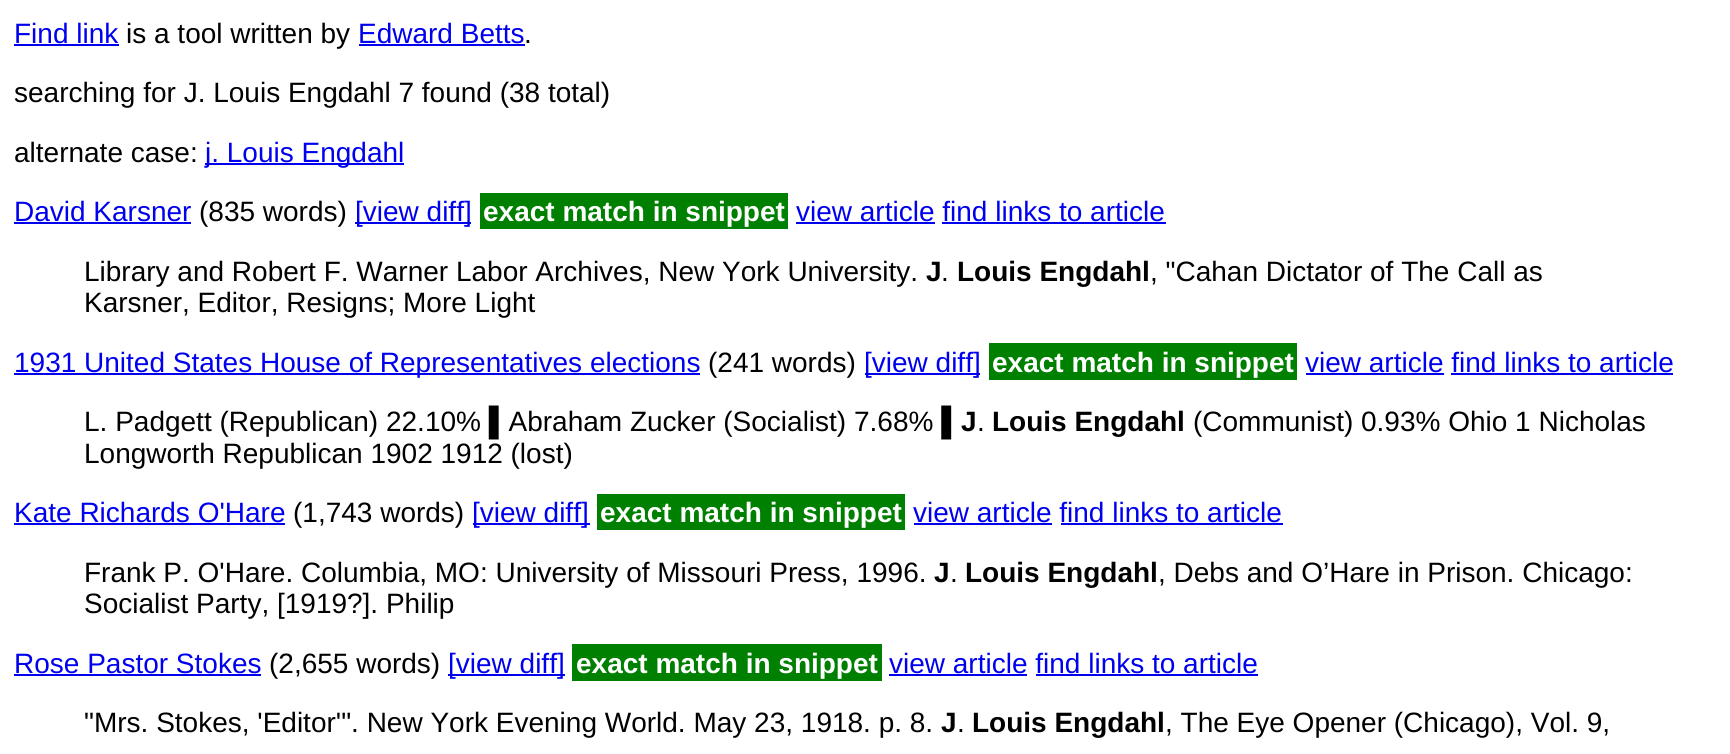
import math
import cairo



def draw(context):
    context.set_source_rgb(1, 1, 1)
    context.paint()
    context.set_source_rgb(0, 0, 238 / 255)
    context.rectangle(14, 44, 105, 2)
    context.fill()
    context.rectangle(359, 44, 166, 2)
    context.fill()
    context.rectangle(205, 163, 199, 2)
    context.fill()
    context.rectangle(14, 222, 177, 2)
    context.fill()
    context.rectangle(355, 222, 116, 2)
    context.fill()
    context.set_source_rgb(0, 128 / 255, 0)
    context.rectangle(480, 193, 308, 36)
    context.fill()
    context.set_source_rgb(0, 0, 238 / 255)
    context.rectangle(796, 222, 139, 2)
    context.fill()
    context.rectangle(942, 222, 224, 2)
    context.fill()
    context.rectangle(14, 373, 686, 2)
    context.fill()
    context.rectangle(865, 373, 115, 2)
    context.fill()
    context.set_source_rgb(0, 128 / 255, 0)
    context.rectangle(989, 343, 308, 37)
    context.fill()
    context.set_source_rgb(0, 0, 238 / 255)
    context.rectangle(1306, 373, 138, 2)
    context.fill()
    context.rectangle(1451, 373, 222, 2)
    context.fill()
    context.rectangle(14, 523, 271, 2)
    context.fill()
    context.rectangle(473, 523, 117, 2)
    context.fill()
    context.set_source_rgb(0, 128 / 255, 0)
    context.rectangle(597, 494, 308, 36)
    context.fill()
    context.set_source_rgb(0, 0, 238 / 255)
    context.rectangle(914, 523, 138, 2)
    context.fill()
    context.rectangle(1061, 523, 222, 2)
    context.fill()
    context.rectangle(14, 674, 247, 2)
    context.fill()
    context.rectangle(448, 674, 117, 2)
    context.fill()
    context.set_source_rgb(0, 128 / 255, 0)
    context.rectangle(572, 644, 310, 37)
    context.fill()
    context.set_source_rgb(0, 0, 238 / 255)
    context.rectangle(889, 674, 138, 2)
    context.fill()
    context.rectangle(1036, 674, 222, 2)
    context.fill()
    context.select_font_face("Liberation Sans")
    context.set_font_size(28)
    context.move_to(14, 43)
    context.show_text("Find link")
    context.set_source_rgb(0, 0, 0)
    context.move_to(126, 43)
    context.show_text("is a tool written by")
    context.set_source_rgb(0, 0, 238 / 255)
    context.move_to(358, 43)
    context.show_text("Edward Betts")
    context.set_source_rgb(0, 0, 0)
    context.move_to(524, 43)
    context.show_text(".")
    context.move_to(14, 102)
    context.show_text("searching for J. Louis Engdahl 7 found (38 total)")
    context.move_to(14, 162)
    context.show_text("alternate case:")
    context.set_source_rgb(0, 0, 238 / 255)
    context.move_to(205, 162)
    context.show_text("j. Louis Engdahl")
    context.move_to(14, 221)
    context.show_text("David Karsner")
    context.set_source_rgb(0, 0, 0)
    context.move_to(199, 221)
    context.show_text("(835 words)")
    context.set_source_rgb(0, 0, 238 / 255)
    context.move_to(355, 221)
    context.show_text("[view diff]")
    context.select_font_face("Liberation Sans", cairo.FontSlant.NORMAL, cairo.FontWeight.BOLD)
    context.set_source_rgb(1, 1, 1)
    context.move_to(483, 221)
    context.show_text("exact match in snippet")
    context.select_font_face("Liberation Sans")
    context.set_source_rgb(0, 0, 238 / 255)
    context.move_to(796, 221)
    context.show_text("view article find links to article")
    context.set_source_rgb(0, 0, 0)
    context.move_to(84, 281)
    context.show_text("Library and Robert F. Warner Labor Archives, New York University.")
    context.select_font_face("Liberation Sans", cairo.FontSlant.NORMAL, cairo.FontWeight.BOLD)
    context.move_to(926, 281)
    context.show_text("J")
    context.select_font_face("Liberation Sans")
    context.move_to(941, 281)
    context.show_text(".")
    context.select_font_face("Liberation Sans", cairo.FontSlant.NORMAL, cairo.FontWeight.BOLD)
    context.move_to(957, 281)
    context.show_text("Louis Engdahl")
    context.select_font_face("Liberation Sans")
    context.move_to(1150, 281)
    context.show_text(", \"Cahan Dictator of The Call as")
    context.move_to(84, 312)
    context.show_text("Karsner, Editor, Resigns; More Light")
    context.set_source_rgb(0, 0, 238 / 255)
    context.move_to(14, 372)
    context.show_text("1931 United States House of Representatives elections")
    context.set_source_rgb(0, 0, 0)
    context.move_to(708, 372)
    context.show_text("(241 words)")
    context.set_source_rgb(0, 0, 238 / 255)
    context.move_to(864, 372)
    context.show_text("[view diff]")
    context.select_font_face("Liberation Sans", cairo.FontSlant.NORMAL, cairo.FontWeight.BOLD)
    context.set_source_rgb(1, 1, 1)
    context.move_to(992, 372)
    context.show_text("exact match in snippet")
    context.select_font_face("Liberation Sans")
    context.set_source_rgb(0, 0, 238 / 255)
    context.move_to(1305, 372)
    context.show_text("view article find links to article")
    context.set_source_rgb(0, 0, 0)
    context.move_to(84, 431)
    context.show_text("L. Padgett (Republican) 22.10% ▌Abraham Zucker (Socialist) 7.68% ▌")
    context.select_font_face("Liberation Sans", cairo.FontSlant.NORMAL, cairo.FontWeight.BOLD)
    context.move_to(961, 431)
    context.show_text("J")
    context.select_font_face("Liberation Sans")
    context.move_to(977, 431)
    context.show_text(".")
    context.select_font_face("Liberation Sans", cairo.FontSlant.NORMAL, cairo.FontWeight.BOLD)
    context.move_to(992, 431)
    context.show_text("Louis Engdahl")
    context.select_font_face("Liberation Sans")
    context.move_to(1193, 431)
    context.show_text("(Communist) 0.93% Ohio 1 Nicholas")
    context.move_to(84, 463)
    context.show_text("Longworth Republican 1902 1912 (lost)")
    context.set_source_rgb(0, 0, 238 / 255)
    context.move_to(14, 522)
    context.show_text("Kate Richards O'Hare")
    context.set_source_rgb(0, 0, 0)
    context.move_to(293, 522)
    context.show_text("(1,743 words)")
    context.set_source_rgb(0, 0, 238 / 255)
    context.move_to(472, 522)
    context.show_text("[view diff]")
    context.select_font_face("Liberation Sans", cairo.FontSlant.NORMAL, cairo.FontWeight.BOLD)
    context.set_source_rgb(1, 1, 1)
    context.move_to(600, 522)
    context.show_text("exact match in snippet")
    context.select_font_face("Liberation Sans")
    context.set_source_rgb(0, 0, 238 / 255)
    context.move_to(913, 522)
    context.show_text("view article find links to article")
    context.set_source_rgb(0, 0, 0)
    context.move_to(84, 582)
    context.show_text("Frank P. O'Hare. Columbia, MO: University of Missouri Press, 1996.")
    context.select_font_face("Liberation Sans", cairo.FontSlant.NORMAL, cairo.FontWeight.BOLD)
    context.move_to(934, 582)
    context.show_text("J")
    context.select_font_face("Liberation Sans")
    context.move_to(950, 582)
    context.show_text(".")
    context.select_font_face("Liberation Sans", cairo.FontSlant.NORMAL, cairo.FontWeight.BOLD)
    context.move_to(965, 582)
    context.show_text("Louis Engdahl")
    context.select_font_face("Liberation Sans")
    context.move_to(1158, 582)
    context.show_text(", Debs and O’Hare in Prison. Chicago:")
    context.move_to(84, 613)
    context.show_text("Socialist Party, [1919?]. Philip")
    context.set_source_rgb(0, 0, 238 / 255)
    context.move_to(14, 673)
    context.show_text("Rose Pastor Stokes")
    context.set_source_rgb(0, 0, 0)
    context.move_to(269, 673)
    context.show_text("(2,655 words)")
    context.set_source_rgb(0, 0, 238 / 255)
    context.move_to(448, 673)
    context.show_text("[view diff]")
    context.select_font_face("Liberation Sans", cairo.FontSlant.NORMAL, cairo.FontWeight.BOLD)
    context.set_source_rgb(1, 1, 1)
    context.move_to(576, 673)
    context.show_text("exact match in snippet")
    context.select_font_face("Liberation Sans")
    context.set_source_rgb(0, 0, 238 / 255)
    context.move_to(889, 673)
    context.show_text("view article find links to article")
    context.set_source_rgb(0, 0, 0)
    context.move_to(84, 732)
    context.show_text("\"Mrs. Stokes, 'Editor'\". New York Evening World. May 23, 1918. p. 8.")
    context.select_font_face("Liberation Sans", cairo.FontSlant.NORMAL, cairo.FontWeight.BOLD)
    context.move_to(941, 732)
    context.show_text("J")
    context.select_font_face("Liberation Sans")
    context.move_to(957, 732)
    context.show_text(".")
    context.select_font_face("Liberation Sans", cairo.FontSlant.NORMAL, cairo.FontWeight.BOLD)
    context.move_to(972, 732)
    context.show_text("Louis Engdahl")
    context.select_font_face("Liberation Sans")
    context.move_to(1165, 732)
    context.show_text(", The Eye Opener (Chicago), Vol. 9,")


surface = cairo.ImageSurface(cairo.Format.RGB24, 1730, 754)
context = cairo.Context(surface)
options = cairo.FontOptions()
options.set_hint_metrics(cairo.HintMetrics.OFF)
options.set_hint_style(cairo.HintStyle.NONE)
context.set_font_options(options)
context.set_miter_limit(4)
draw(context)
surface.write_to_png("out.png")
